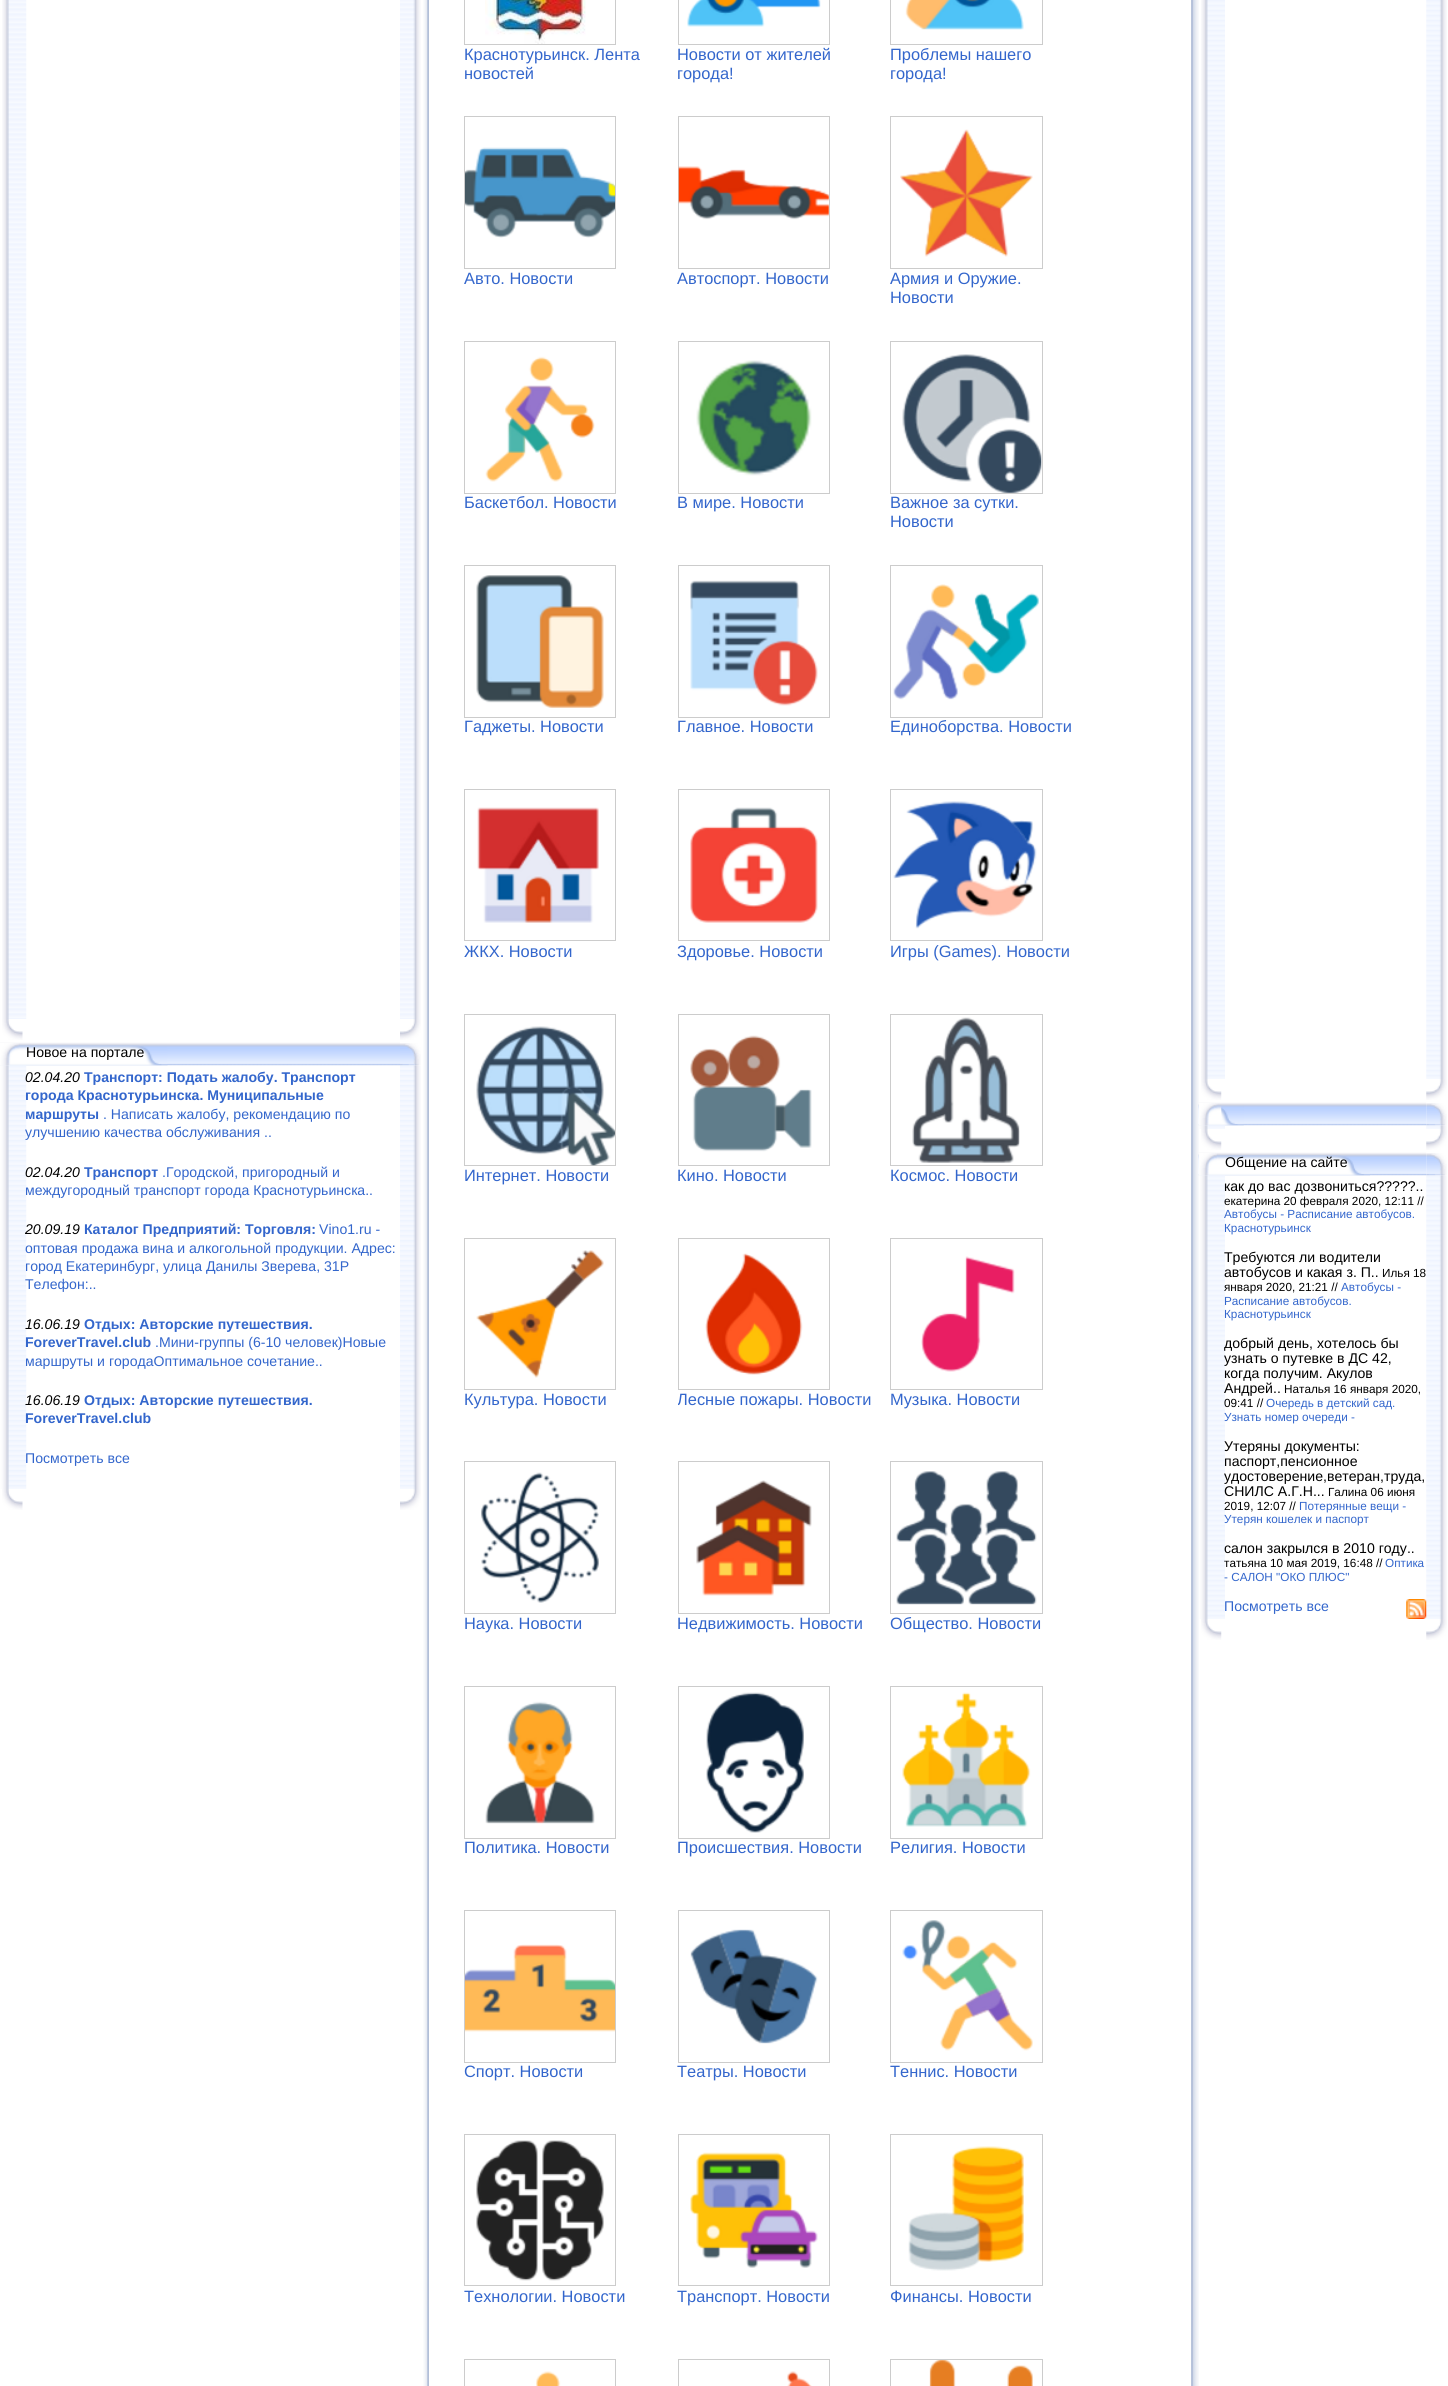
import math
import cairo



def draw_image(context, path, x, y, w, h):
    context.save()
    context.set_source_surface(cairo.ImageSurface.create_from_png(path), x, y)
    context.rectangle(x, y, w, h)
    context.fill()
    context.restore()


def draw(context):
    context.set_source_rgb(1, 1, 1)
    context.paint()
    draw_image(context, "images/1.png", 2, 0, 25, 1019)
    draw_image(context, "images/2.png", 400, 0, 21, 1019)
    draw_image(context, "images/3.png", 2, 1019, 21, 21)
    draw_image(context, "images/4.png", 400, 1019, 21, 21)
    draw_image(context, "images/5.png", 0, 1042, 400, 24)
    draw_image(context, "images/6.png", 0, 1045, 168, 21)
    draw_image(context, "images/7.png", 0, 1043, 19, 22)
    draw_image(context, "images/10.png", 400, 1065, 21, 424)
    draw_image(context, "images/8.png", 400, 1043, 21, 23)
    draw_image(context, "images/9.png", 0, 1065, 27, 424)
    draw_image(context, "images/3.png", 2, 1489, 21, 21)
    draw_image(context, "images/4.png", 400, 1489, 21, 21)
    draw_image(context, "images/11.png", 423, 0, 6, 2386)
    draw_image(context, "images/12.png", 1191, 0, 8, 2386)
    context.rectangle(464.5, -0.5, 151, 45)
    context.set_source_rgb(204 / 255, 204 / 255, 204 / 255)
    context.set_line_width(1)
    context.stroke()
    draw_image(context, "images/13.png", 485, 0, 101, 44)
    context.rectangle(678.5, -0.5, 151, 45)
    context.stroke()
    draw_image(context, "images/14.png", 687, 0, 134, 27)
    context.rectangle(890.5, -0.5, 152, 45)
    context.stroke()
    draw_image(context, "images/15.png", 905, 0, 119, 30)
    context.rectangle(464.5, 116.5, 151, 152)
    context.stroke()
    draw_image(context, "images/16.png", 465, 147, 150, 91)
    context.rectangle(678.5, 116.5, 151, 152)
    context.stroke()
    draw_image(context, "images/17.png", 678, 166, 151, 54)
    context.rectangle(890.5, 116.5, 152, 152)
    context.stroke()
    draw_image(context, "images/18.png", 900, 129, 133, 128)
    context.rectangle(464.5, 341.5, 151, 152)
    context.stroke()
    draw_image(context, "images/19.png", 485, 356, 110, 126)
    context.rectangle(678.5, 341.5, 151, 152)
    context.stroke()
    draw_image(context, "images/20.png", 696, 360, 116, 116)
    context.rectangle(890.5, 341.5, 152, 152)
    context.stroke()
    draw_image(context, "images/21.png", 902, 354, 140, 139)
    context.rectangle(464.5, 565.5, 151, 152)
    context.stroke()
    draw_image(context, "images/22.png", 476, 575, 128, 133)
    context.rectangle(678.5, 565.5, 151, 152)
    context.stroke()
    draw_image(context, "images/23.png", 690, 580, 128, 126)
    context.rectangle(890.5, 565.5, 152, 152)
    context.stroke()
    draw_image(context, "images/24.png", 893, 584, 146, 116)
    context.rectangle(464.5, 789.5, 151, 151)
    context.stroke()
    draw_image(context, "images/25.png", 477, 807, 122, 116)
    context.rectangle(678.5, 789.5, 151, 151)
    context.stroke()
    draw_image(context, "images/26.png", 690, 807, 128, 116)
    context.rectangle(890.5, 789.5, 152, 151)
    context.stroke()
    draw_image(context, "images/27.png", 893, 801, 144, 128)
    context.rectangle(464.5, 1014.5, 151, 151)
    context.stroke()
    draw_image(context, "images/28.png", 476, 1026, 139, 140)
    context.rectangle(678.5, 1014.5, 151, 151)
    context.stroke()
    draw_image(context, "images/29.png", 690, 1035, 122, 117)
    context.rectangle(890.5, 1014.5, 152, 151)
    context.stroke()
    draw_image(context, "images/30.png", 912, 1017, 108, 146)
    context.rectangle(464.5, 1238.5, 151, 151)
    context.stroke()
    draw_image(context, "images/31.png", 476, 1250, 128, 128)
    context.rectangle(678.5, 1238.5, 151, 151)
    context.stroke()
    draw_image(context, "images/32.png", 705, 1253, 98, 122)
    context.rectangle(890.5, 1238.5, 152, 151)
    context.stroke()
    draw_image(context, "images/33.png", 921, 1256, 94, 116)
    context.rectangle(464.5, 1461.5, 151, 152)
    context.stroke()
    draw_image(context, "images/34.png", 481, 1472, 118, 131)
    context.rectangle(678.5, 1461.5, 151, 152)
    context.stroke()
    draw_image(context, "images/35.png", 696, 1480, 116, 116)
    context.rectangle(890.5, 1461.5, 152, 152)
    context.stroke()
    draw_image(context, "images/36.png", 896, 1471, 141, 134)
    context.rectangle(464.5, 1686.5, 151, 152)
    context.stroke()
    draw_image(context, "images/37.png", 485, 1701, 110, 123)
    context.rectangle(678.5, 1686.5, 151, 152)
    context.stroke()
    draw_image(context, "images/38.png", 706, 1692, 98, 141)
    context.rectangle(890.5, 1686.5, 152, 152)
    context.stroke()
    draw_image(context, "images/39.png", 902, 1692, 129, 135)
    context.rectangle(464.5, 1910.5, 151, 152)
    context.stroke()
    draw_image(context, "images/40.png", 465, 1944, 150, 88)
    context.rectangle(678.5, 1910.5, 151, 152)
    context.stroke()
    draw_image(context, "images/41.png", 690, 1929, 128, 115)
    context.rectangle(890.5, 1910.5, 152, 152)
    context.stroke()
    draw_image(context, "images/42.png", 902, 1920, 131, 131)
    context.rectangle(464.5, 2134.5, 151, 151)
    context.stroke()
    draw_image(context, "images/43.png", 476, 2140, 128, 141)
    context.rectangle(678.5, 2134.5, 151, 151)
    context.stroke()
    draw_image(context, "images/44.png", 690, 2152, 128, 116)
    context.rectangle(890.5, 2134.5, 152, 151)
    context.stroke()
    draw_image(context, "images/45.png", 908, 2146, 116, 125)
    context.rectangle(464.5, 2359.5, 151, 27)
    context.stroke()
    draw_image(context, "images/46.png", 536, 2371, 25, 15)
    context.rectangle(678.5, 2359.5, 151, 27)
    context.stroke()
    draw_image(context, "images/47.png", 787, 2371, 25, 15)
    context.rectangle(890.5, 2359.5, 152, 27)
    context.stroke()
    draw_image(context, "images/48.png", 929, 2360, 104, 26)
    draw_image(context, "images/49.png", 1201, 0, 24, 1079)
    draw_image(context, "images/50.png", 1426, 0, 21, 1079)
    draw_image(context, "images/51.png", 1201, 1079, 21, 21)
    draw_image(context, "images/52.png", 1426, 1079, 21, 21)
    draw_image(context, "images/53.png", 1198, 1102, 229, 24)
    draw_image(context, "images/54.png", 1198, 1104, 46, 22)
    draw_image(context, "images/55.png", 1198, 1103, 24, 22)
    draw_image(context, "images/58.png", 1426, 1125, 21, 4)
    draw_image(context, "images/56.png", 1426, 1103, 21, 23)
    draw_image(context, "images/57.png", 1199, 1125, 26, 4)
    draw_image(context, "images/51.png", 1201, 1129, 21, 21)
    draw_image(context, "images/52.png", 1426, 1129, 21, 21)
    draw_image(context, "images/53.png", 1198, 1152, 229, 24)
    draw_image(context, "images/59.png", 1198, 1154, 172, 22)
    draw_image(context, "images/60.png", 1198, 1153, 19, 22)
    draw_image(context, "images/64.png", 1426, 1175, 21, 444)
    draw_image(context, "images/61.png", 1426, 1153, 21, 23)
    draw_image(context, "images/62.png", 1199, 1175, 26, 444)
    draw_image(context, "images/63.png", 1406, 1599, 21, 20)
    draw_image(context, "images/51.png", 1201, 1619, 21, 21)
    draw_image(context, "images/52.png", 1426, 1619, 21, 21)
    context.select_font_face("Liberation Sans")
    context.set_font_size(14.1)
    context.set_source_rgb(0, 0, 0)
    context.move_to(26, 1057)
    context.show_text("Новое на портале")
    context.select_font_face("Liberation Sans", cairo.FontSlant.ITALIC)
    context.move_to(25, 1082)
    context.show_text("02.04.20")
    context.select_font_face("Liberation Sans", cairo.FontSlant.NORMAL, cairo.FontWeight.BOLD)
    context.set_source_rgb(51 / 255, 102 / 255, 204 / 255)
    context.move_to(84, 1082)
    context.show_text("Транспорт: Подать жалобу. Транспорт")
    context.move_to(25, 1100)
    context.show_text("города Краснотурьинска. Муниципальные")
    context.move_to(25, 1119)
    context.show_text("маршруты")
    context.select_font_face("Liberation Sans")
    context.move_to(103, 1119)
    context.show_text(". Написать жалобу, рекомендацию по")
    context.move_to(25, 1137)
    context.show_text("улучшению качества обслуживания ..")
    context.select_font_face("Liberation Sans", cairo.FontSlant.ITALIC)
    context.set_source_rgb(0, 0, 0)
    context.move_to(25, 1177)
    context.show_text("02.04.20")
    context.select_font_face("Liberation Sans", cairo.FontSlant.NORMAL, cairo.FontWeight.BOLD)
    context.set_source_rgb(51 / 255, 102 / 255, 204 / 255)
    context.move_to(84, 1177)
    context.show_text("Транспорт")
    context.select_font_face("Liberation Sans")
    context.move_to(162, 1177)
    context.show_text(".Городской, пригородный и")
    context.move_to(25, 1195)
    context.show_text("междугородный транспорт города Краснотурьинска..")
    context.select_font_face("Liberation Sans", cairo.FontSlant.ITALIC)
    context.set_source_rgb(0, 0, 0)
    context.move_to(25, 1234)
    context.show_text("20.09.19")
    context.select_font_face("Liberation Sans", cairo.FontSlant.NORMAL, cairo.FontWeight.BOLD)
    context.set_source_rgb(51 / 255, 102 / 255, 204 / 255)
    context.move_to(84, 1234)
    context.show_text("Каталог Предприятий: Торговля:")
    context.select_font_face("Liberation Sans")
    context.move_to(319, 1234)
    context.show_text("Vino1.ru -")
    context.move_to(25, 1253)
    context.show_text("оптовая продажа вина и алкогольной продукции. Адрес:")
    context.move_to(25, 1271)
    context.show_text("город Екатеринбург, улица Данилы Зверева, 31Р")
    context.move_to(25, 1289)
    context.show_text("Телефон:..")
    context.select_font_face("Liberation Sans", cairo.FontSlant.ITALIC)
    context.set_source_rgb(0, 0, 0)
    context.move_to(25, 1329)
    context.show_text("16.06.19")
    context.select_font_face("Liberation Sans", cairo.FontSlant.NORMAL, cairo.FontWeight.BOLD)
    context.set_source_rgb(51 / 255, 102 / 255, 204 / 255)
    context.move_to(84, 1329)
    context.show_text("Отдых: Авторские путешествия.")
    context.move_to(25, 1347)
    context.show_text("ForeverTravel.club")
    context.select_font_face("Liberation Sans")
    context.move_to(155, 1347)
    context.show_text(".Мини-группы (6-10 человек)Новые")
    context.move_to(25, 1366)
    context.show_text("маршруты и городаОптимальное сочетание..")
    context.select_font_face("Liberation Sans", cairo.FontSlant.ITALIC)
    context.set_source_rgb(0, 0, 0)
    context.move_to(25, 1405)
    context.show_text("16.06.19")
    context.select_font_face("Liberation Sans", cairo.FontSlant.NORMAL, cairo.FontWeight.BOLD)
    context.set_source_rgb(51 / 255, 102 / 255, 204 / 255)
    context.move_to(84, 1405)
    context.show_text("Отдых: Авторские путешествия.")
    context.move_to(25, 1423)
    context.show_text("ForeverTravel.club")
    context.select_font_face("Liberation Sans")
    context.move_to(25, 1463)
    context.show_text("Посмотреть все")
    context.set_font_size(16.4)
    context.move_to(464, 60)
    context.show_text("Краснотурьинск. Лента")
    context.move_to(464, 79)
    context.show_text("новостей")
    context.move_to(677, 60)
    context.show_text("Новости от жителей")
    context.move_to(677, 79)
    context.show_text("города!")
    context.move_to(890, 60)
    context.show_text("Проблемы нашего")
    context.move_to(890, 79)
    context.show_text("города!")
    context.move_to(464, 284)
    context.show_text("Авто. Новости")
    context.move_to(677, 284)
    context.show_text("Автоспорт. Новости")
    context.move_to(890, 284)
    context.show_text("Армия и Оружие.")
    context.move_to(890, 303)
    context.show_text("Новости")
    context.move_to(464, 508)
    context.show_text("Баскетбол. Новости")
    context.move_to(677, 508)
    context.show_text("В мире. Новости")
    context.move_to(890, 508)
    context.show_text("Важное за сутки.")
    context.move_to(890, 527)
    context.show_text("Новости")
    context.move_to(464, 732)
    context.show_text("Гаджеты. Новости")
    context.move_to(677, 732)
    context.show_text("Главное. Новости")
    context.move_to(890, 732)
    context.show_text("Единоборства. Новости")
    context.move_to(464, 957)
    context.show_text("ЖКХ. Новости")
    context.move_to(677, 957)
    context.show_text("Здоровье. Новости")
    context.move_to(890, 957)
    context.show_text("Игры (Games). Новости")
    context.move_to(464, 1181)
    context.show_text("Интернет. Новости")
    context.move_to(677, 1181)
    context.show_text("Кино. Новости")
    context.move_to(890, 1181)
    context.show_text("Космос. Новости")
    context.move_to(464, 1405)
    context.show_text("Культура. Новости")
    context.save()
    context.rectangle(678, 1238, 196, 207)
    context.clip()
    context.move_to(677, 1405)
    context.show_text("Лесные пожары. Новости")
    context.restore()
    context.move_to(890, 1405)
    context.show_text("Музыка. Новости")
    context.move_to(464, 1629)
    context.show_text("Наука. Новости")
    context.move_to(677, 1629)
    context.show_text("Недвижимость. Новости")
    context.move_to(890, 1629)
    context.show_text("Общество. Новости")
    context.move_to(464, 1853)
    context.show_text("Политика. Новости")
    context.move_to(677, 1853)
    context.show_text("Происшествия. Новости")
    context.move_to(890, 1853)
    context.show_text("Религия. Новости")
    context.move_to(464, 2077)
    context.show_text("Спорт. Новости")
    context.move_to(677, 2077)
    context.show_text("Театры. Новости")
    context.move_to(890, 2077)
    context.show_text("Теннис. Новости")
    context.move_to(464, 2302)
    context.show_text("Технологии. Новости")
    context.move_to(677, 2302)
    context.show_text("Транспорт. Новости")
    context.move_to(890, 2302)
    context.show_text("Финансы. Новости")
    context.set_font_size(14.1)
    context.set_source_rgb(0, 0, 0)
    context.move_to(1225, 1167)
    context.show_text("Общение на сайте")
    context.move_to(1224, 1191)
    context.show_text("как до вас дозвониться?????..")
    context.set_font_size(11.75)
    context.move_to(1224, 1205)
    context.show_text("екатерина 20 февраля 2020, 12:11 //")
    context.set_source_rgb(51 / 255, 102 / 255, 204 / 255)
    context.move_to(1224, 1218)
    context.show_text("Автобусы - Расписание автобусов.")
    context.move_to(1224, 1232)
    context.show_text("Краснотурьинск")
    context.set_font_size(14.1)
    context.set_source_rgb(0, 0, 0)
    context.move_to(1224, 1262)
    context.show_text("Требуются ли водители")
    context.move_to(1224, 1277)
    context.show_text("автобусов и какая з. П..")
    context.set_font_size(11.75)
    context.move_to(1382, 1277)
    context.show_text("Илья 18")
    context.move_to(1224, 1291)
    context.show_text("января 2020, 21:21 //")
    context.set_source_rgb(51 / 255, 102 / 255, 204 / 255)
    context.move_to(1341, 1291)
    context.show_text("Автобусы -")
    context.move_to(1224, 1305)
    context.show_text("Расписание автобусов.")
    context.move_to(1224, 1318)
    context.show_text("Краснотурьинск")
    context.set_font_size(14.1)
    context.set_source_rgb(0, 0, 0)
    context.move_to(1224, 1348)
    context.show_text("добрый день, хотелось бы")
    context.move_to(1224, 1363)
    context.show_text("узнать о путевке в ДС 42,")
    context.move_to(1224, 1378)
    context.show_text("когда получим. Акулов")
    context.move_to(1224, 1393)
    context.show_text("Андрей..")
    context.set_font_size(11.75)
    context.move_to(1284, 1393)
    context.show_text("Наталья 16 января 2020,")
    context.move_to(1224, 1407)
    context.show_text("09:41 //")
    context.set_source_rgb(51 / 255, 102 / 255, 204 / 255)
    context.move_to(1266, 1407)
    context.show_text("Очередь в детский сад.")
    context.move_to(1224, 1421)
    context.show_text("Узнать номер очереди -")
    context.set_font_size(14.1)
    context.set_source_rgb(0, 0, 0)
    context.move_to(1224, 1451)
    context.show_text("Утеряны документы:")
    context.move_to(1224, 1466)
    context.show_text("паспорт,пенсионное")
    context.move_to(1224, 1481)
    context.show_text("удостоверение,ветеран,труда,")
    context.move_to(1224, 1496)
    context.show_text("СНИЛС А.Г.Н...")
    context.set_font_size(11.75)
    context.move_to(1328, 1496)
    context.show_text("Галина 06 июня")
    context.move_to(1224, 1510)
    context.show_text("2019, 12:07 //")
    context.set_source_rgb(51 / 255, 102 / 255, 204 / 255)
    context.move_to(1299, 1510)
    context.show_text("Потерянные вещи -")
    context.move_to(1224, 1523)
    context.show_text("Утерян кошелек и паспорт")
    context.set_font_size(14.1)
    context.set_source_rgb(0, 0, 0)
    context.move_to(1224, 1553)
    context.show_text("салон закрылся в 2010 году..")
    context.set_font_size(11.75)
    context.move_to(1224, 1567)
    context.show_text("татьяна 10 мая 2019, 16:48 //")
    context.set_source_rgb(51 / 255, 102 / 255, 204 / 255)
    context.move_to(1385, 1567)
    context.show_text("Оптика")
    context.move_to(1224, 1581)
    context.show_text("- САЛОН \"ОКО ПЛЮС\"")
    context.set_font_size(14.1)
    context.move_to(1224, 1611)
    context.show_text("Посмотреть все")


surface = cairo.ImageSurface(cairo.Format.RGB24, 1448, 2386)
context = cairo.Context(surface)
options = cairo.FontOptions()
options.set_hint_metrics(cairo.HintMetrics.OFF)
options.set_hint_style(cairo.HintStyle.NONE)
context.set_font_options(options)
context.set_miter_limit(4)
draw(context)
surface.write_to_png("out.png")
